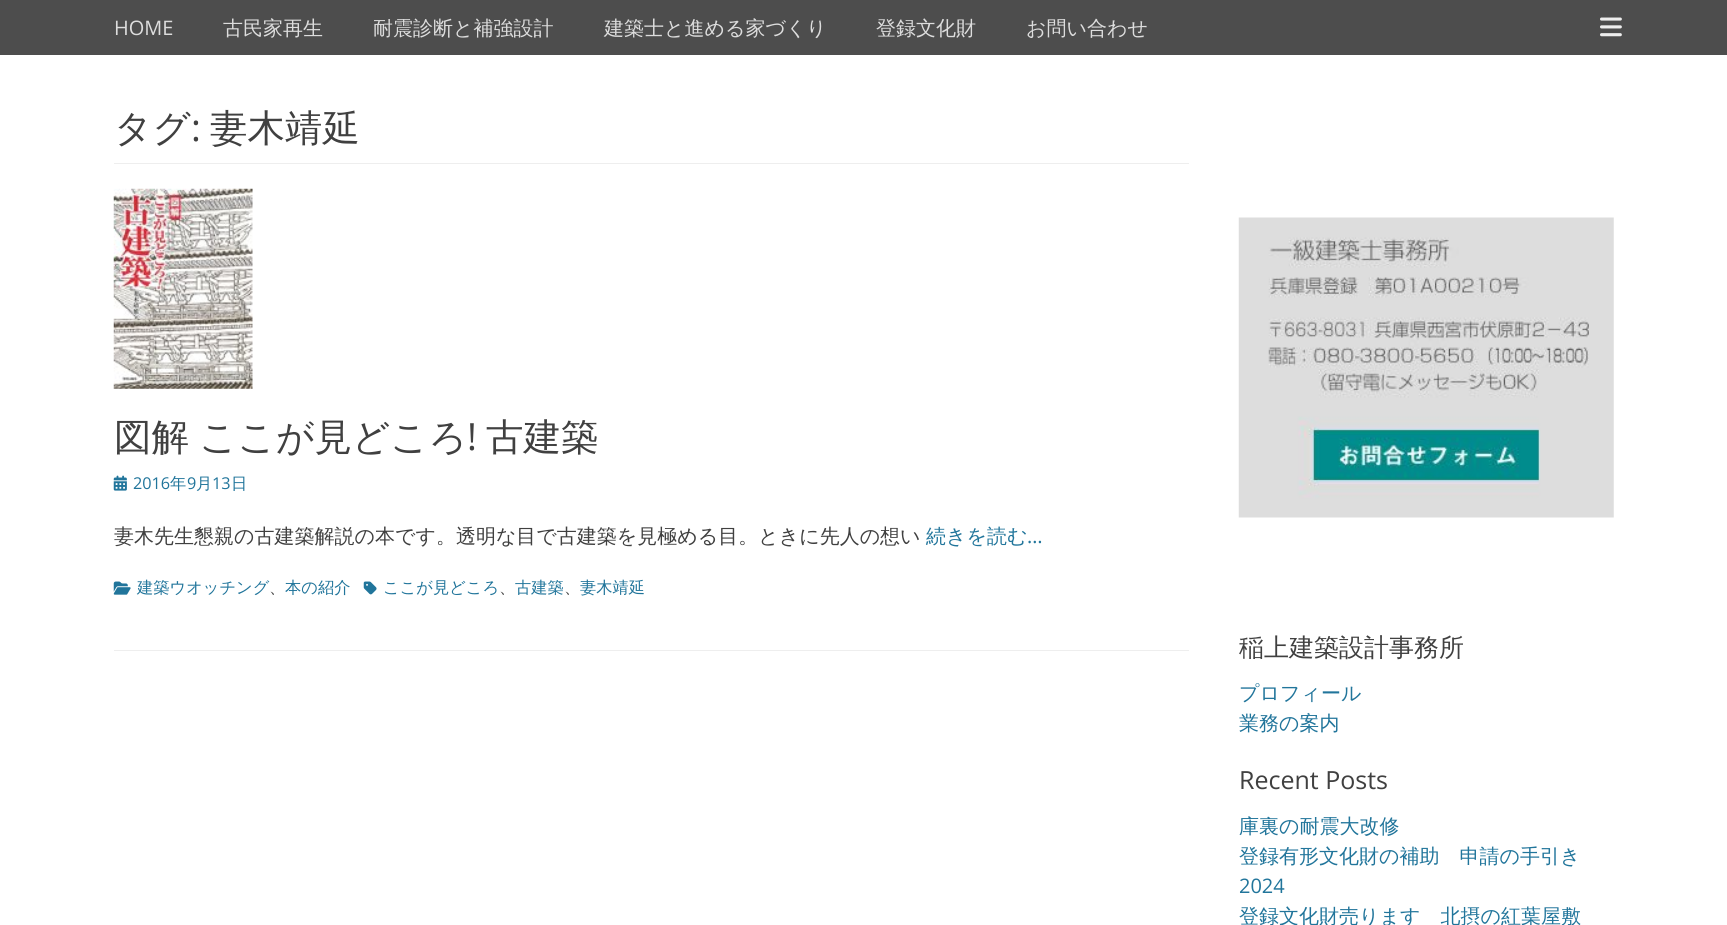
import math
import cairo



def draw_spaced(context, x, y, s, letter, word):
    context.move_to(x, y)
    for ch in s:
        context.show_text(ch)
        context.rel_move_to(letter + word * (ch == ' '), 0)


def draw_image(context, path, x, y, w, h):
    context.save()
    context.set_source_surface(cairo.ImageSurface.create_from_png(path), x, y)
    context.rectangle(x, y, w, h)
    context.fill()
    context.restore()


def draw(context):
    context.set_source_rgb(1, 1, 1)
    context.paint()
    context.set_source_rgb(77 / 255, 77 / 255, 77 / 255)
    context.rectangle(0, 0, 1727, 55)
    context.fill()
    draw_image(context, "images/1.png", 1600, 17, 22, 20)
    context.set_source_rgb(238 / 255, 238 / 255, 238 / 255)
    context.rectangle(114, 163, 1075, 1)
    context.fill()
    context.rectangle(114, 650, 1075, 1)
    context.fill()
    draw_image(context, "images/2.png", 113, 188, 140, 201)
    draw_image(context, "images/3.png", 113, 475, 14, 16)
    draw_image(context, "images/4.png", 113, 581, 18, 14)
    draw_image(context, "images/5.png", 363, 581, 14, 14)
    draw_image(context, "images/6.png", 1238, 217, 376, 301)
    context.select_font_face("Open Sans")
    context.set_font_size(20)
    context.set_source_rgb(221 / 255, 221 / 255, 221 / 255)
    context.move_to(114, 35)
    context.show_text("HOME")
    context.select_font_face("WenQuanYi Zen Hei Medium")
    context.move_to(223, 35)
    context.show_text("古民家再生")
    context.move_to(373, 35)
    context.show_text("耐震診断と補強設計")
    context.move_to(604, 35)
    context.show_text("建築士と進める家づくり")
    context.move_to(876, 35)
    context.show_text("登録文化財")
    context.move_to(1026, 35)
    context.show_text("お問い合わせ")
    context.set_font_size(37.5)
    context.set_source_rgb(64 / 255, 64 / 255, 64 / 255)
    context.move_to(114, 141)
    context.show_text("タグ")
    context.select_font_face("Open Sans")
    context.move_to(191, 141)
    context.show_text(":")
    context.select_font_face("WenQuanYi Zen Hei Medium")
    context.move_to(210, 141)
    context.show_text("妻木靖延")
    draw_spaced(context, 114, 450, "図解 ここが見どころ", 0, -1)
    context.select_font_face("Open Sans")
    context.move_to(467, 450)
    context.show_text("!")
    context.select_font_face("WenQuanYi Zen Hei Medium")
    context.move_to(486, 450)
    context.show_text("古建築")
    context.select_font_face("Open Sans")
    context.set_font_size(16.25)
    context.set_source_rgb(33 / 255, 117 / 255, 155 / 255)
    context.move_to(133, 489)
    context.show_text("2016")
    context.select_font_face("WenQuanYi Zen Hei Medium")
    context.move_to(170, 489)
    context.show_text("年")
    context.select_font_face("Open Sans")
    context.move_to(187, 489)
    context.show_text("9")
    context.select_font_face("WenQuanYi Zen Hei Medium")
    context.move_to(196, 489)
    context.show_text("月")
    context.select_font_face("Open Sans")
    context.move_to(212, 489)
    context.show_text("13")
    context.select_font_face("WenQuanYi Zen Hei Medium")
    context.move_to(231, 489)
    context.show_text("日")
    context.set_font_size(20)
    context.set_source_rgb(64 / 255, 64 / 255, 64 / 255)
    context.move_to(114, 543)
    context.show_text("妻木先生懇親の古建築解説の本です。透明な目で古建築を見極める目。ときに先人の想い")
    context.set_source_rgb(33 / 255, 117 / 255, 155 / 255)
    context.move_to(926, 543)
    context.show_text("続きを読む")
    context.select_font_face("Open Sans")
    context.move_to(1027, 543)
    context.show_text("…")
    context.select_font_face("WenQuanYi Zen Hei Medium")
    context.set_font_size(16.25)
    context.move_to(137, 593)
    context.show_text("建築ウオッチング")
    context.set_source_rgb(64 / 255, 64 / 255, 64 / 255)
    context.move_to(269, 593)
    context.show_text("、")
    context.set_source_rgb(33 / 255, 117 / 255, 155 / 255)
    context.move_to(285, 593)
    context.show_text("本の紹介")
    context.move_to(383, 593)
    context.show_text("ここが見どころ")
    context.set_source_rgb(64 / 255, 64 / 255, 64 / 255)
    context.move_to(499, 593)
    context.show_text("、")
    context.set_source_rgb(33 / 255, 117 / 255, 155 / 255)
    context.move_to(515, 593)
    context.show_text("古建築")
    context.set_source_rgb(64 / 255, 64 / 255, 64 / 255)
    context.move_to(564, 593)
    context.show_text("、")
    context.set_source_rgb(33 / 255, 117 / 255, 155 / 255)
    context.move_to(580, 593)
    context.show_text("妻木靖延")
    context.set_font_size(25)
    context.set_source_rgb(64 / 255, 64 / 255, 64 / 255)
    context.move_to(1239, 656)
    context.show_text("稲上建築設計事務所")
    context.set_font_size(20)
    context.set_source_rgb(33 / 255, 117 / 255, 155 / 255)
    context.move_to(1239, 700)
    context.show_text("プロフィール")
    context.move_to(1239, 730)
    context.show_text("業務の案内")
    context.select_font_face("Open Sans")
    context.set_font_size(25)
    context.set_source_rgb(64 / 255, 64 / 255, 64 / 255)
    context.move_to(1239, 789)
    context.show_text("Recent Posts")
    context.select_font_face("WenQuanYi Zen Hei Medium")
    context.set_font_size(20)
    context.set_source_rgb(33 / 255, 117 / 255, 155 / 255)
    context.move_to(1239, 833)
    context.show_text("庫裏の耐震大改修")
    context.move_to(1239, 863)
    context.show_text("登録有形文化財の補助　申請の手引き")
    context.select_font_face("Open Sans")
    context.move_to(1239, 893)
    context.show_text("2024")
    context.select_font_face("WenQuanYi Zen Hei Medium")
    context.move_to(1239, 923)
    context.show_text("登録文化財売ります　北摂の紅葉屋敷")


surface = cairo.ImageSurface(cairo.Format.RGB24, 1727, 925)
context = cairo.Context(surface)
options = cairo.FontOptions()
options.set_hint_metrics(cairo.HintMetrics.OFF)
options.set_hint_style(cairo.HintStyle.NONE)
context.set_font_options(options)
context.set_miter_limit(4)
draw(context)
surface.write_to_png("out.png")
